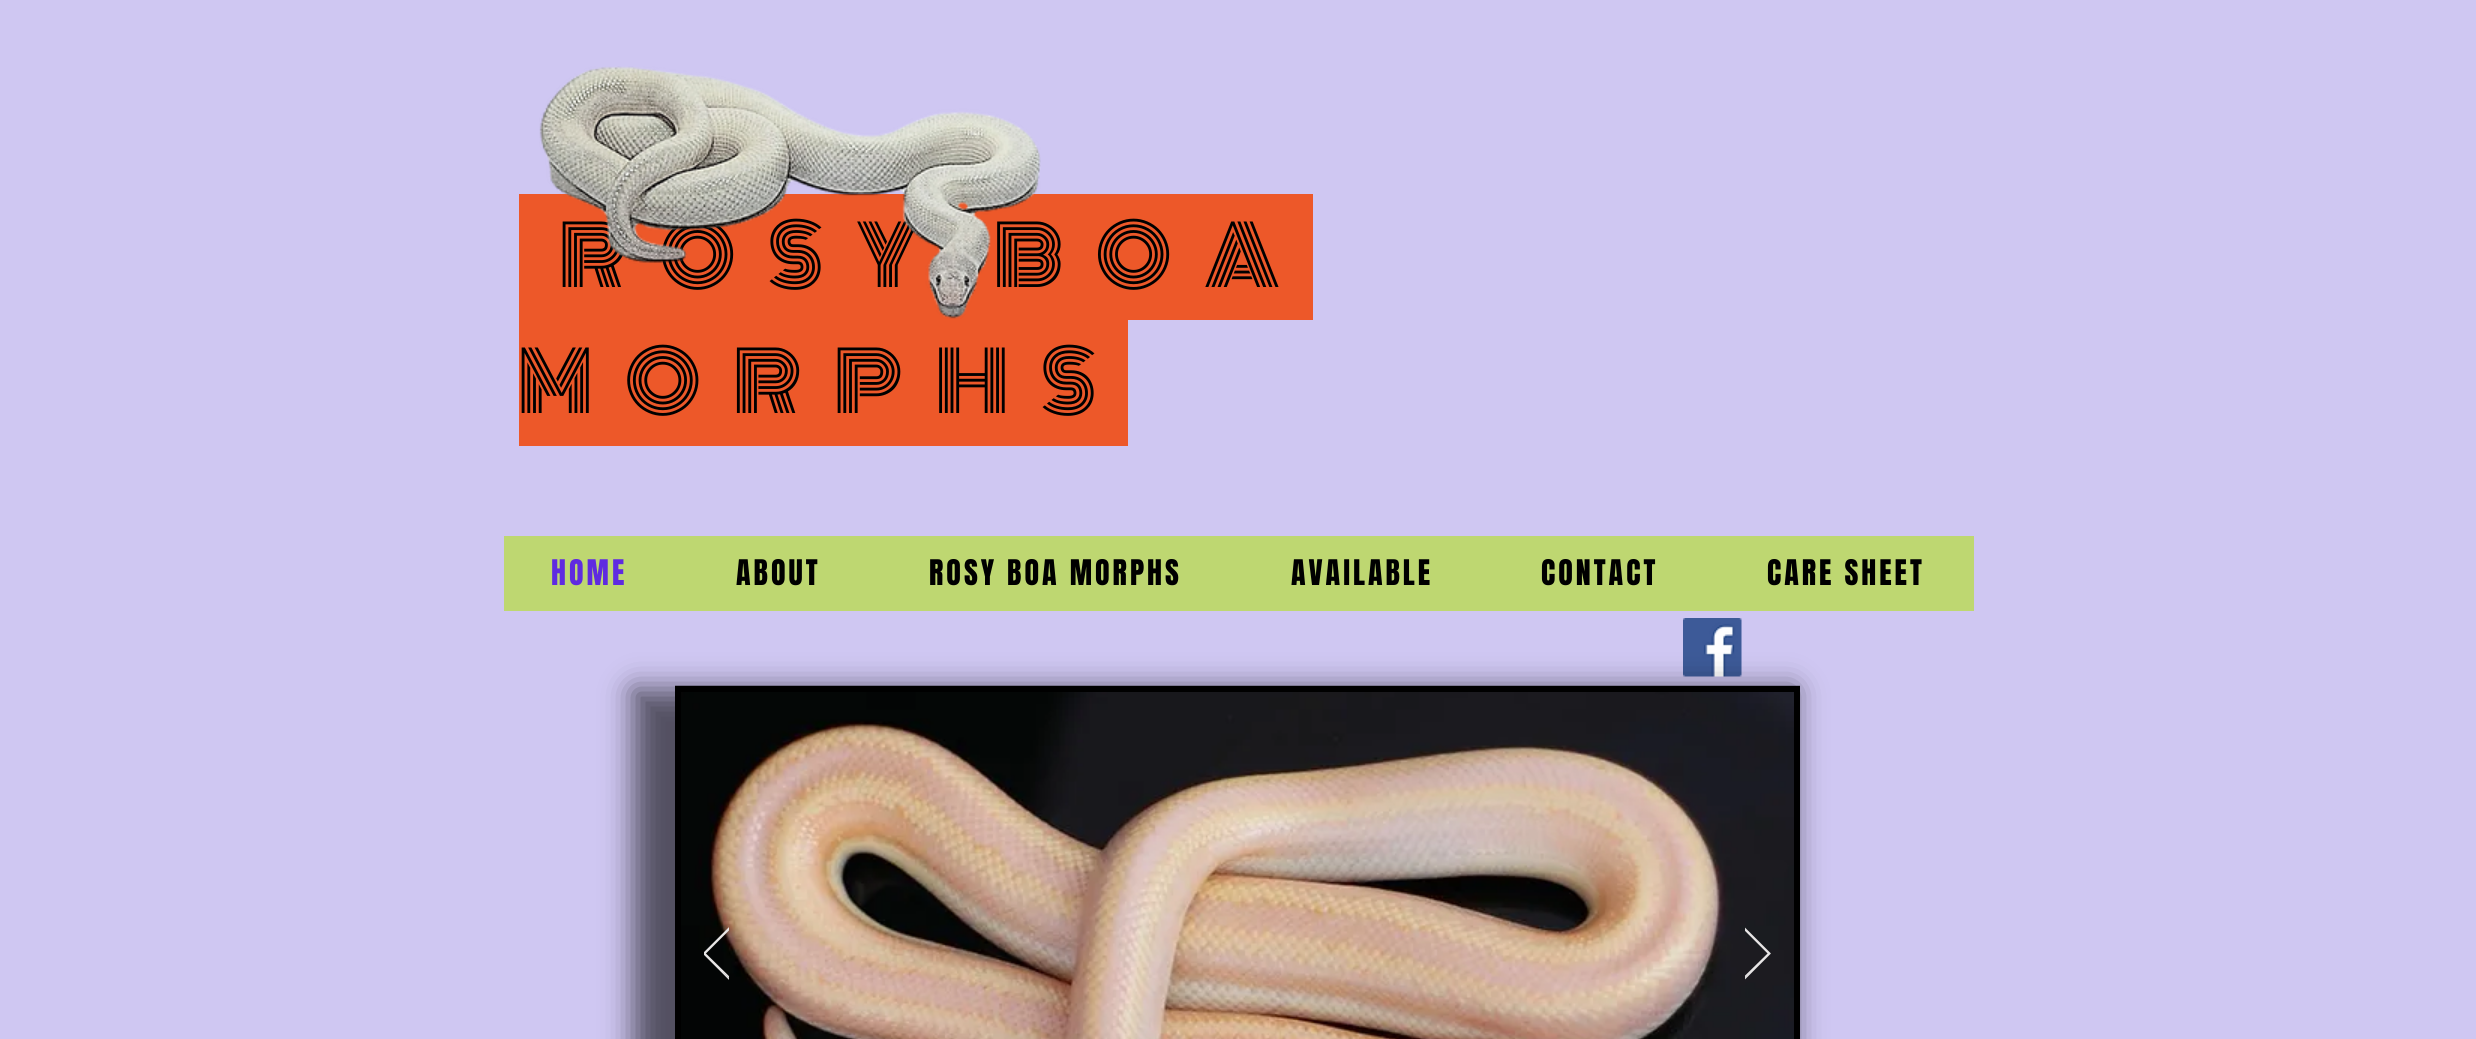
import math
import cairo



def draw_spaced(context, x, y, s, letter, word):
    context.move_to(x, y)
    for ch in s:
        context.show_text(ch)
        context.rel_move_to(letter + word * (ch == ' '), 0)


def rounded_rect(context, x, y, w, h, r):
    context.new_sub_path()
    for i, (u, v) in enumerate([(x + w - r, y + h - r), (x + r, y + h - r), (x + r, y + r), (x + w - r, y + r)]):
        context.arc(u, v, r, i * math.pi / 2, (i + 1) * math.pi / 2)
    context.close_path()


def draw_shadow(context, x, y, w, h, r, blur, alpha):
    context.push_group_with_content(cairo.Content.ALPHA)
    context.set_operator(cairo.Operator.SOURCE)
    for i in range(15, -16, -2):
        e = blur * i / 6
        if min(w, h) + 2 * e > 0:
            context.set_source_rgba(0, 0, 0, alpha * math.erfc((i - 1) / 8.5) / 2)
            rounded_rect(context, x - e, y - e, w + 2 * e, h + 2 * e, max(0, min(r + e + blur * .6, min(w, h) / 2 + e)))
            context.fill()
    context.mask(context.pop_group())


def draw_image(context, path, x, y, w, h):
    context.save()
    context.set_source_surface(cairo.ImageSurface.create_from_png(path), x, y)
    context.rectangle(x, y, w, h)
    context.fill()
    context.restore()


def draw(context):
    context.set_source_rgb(207 / 255, 199 / 255, 242 / 255)
    context.paint()
    context.set_source_rgb(237 / 255, 88 / 255, 41 / 255)
    context.rectangle(519, 194, 794, 126)
    context.fill()
    context.rectangle(519, 320, 609, 126)
    context.fill()
    context.set_source_rgb(190 / 255, 215 / 255, 113 / 255)
    context.rectangle(504, 536, 1470, 75)
    context.fill()
    draw_image(context, "images/2.png", 1683, 618, 59, 59)
    context.set_source_rgb(0, 0, 0)
    draw_shadow(context, 633, 689, 1161, 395, 0, 15, 0.6)
    draw_image(context, "images/3.png", 675, 685, 1125, 354)
    context.rectangle(678, 689, 1119, 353)
    context.set_source_rgb(0, 0, 0)
    context.set_line_width(6)
    context.stroke()
    context.save()
    context.rectangle(704, 927, 25, 53)
    context.clip()
    context.new_path()
    context.move_to(729.5, 979.5)
    context.line_to(703.5, 953.5)
    context.line_to(729.5, 927.5)
    context.line_to(730.5, 928)
    context.line_to(705, 953.5)
    context.line_to(730.5, 978.5)
    context.close_path()
    context.set_source_rgb(232 / 255, 230 / 255, 230 / 255)
    context.set_line_width(1.3)
    context.stroke()
    context.restore()
    context.save()
    context.rectangle(1745, 927, 27, 53)
    context.clip()
    context.new_path()
    context.move_to(1744, 979.5)
    context.line_to(1770, 953.5)
    context.line_to(1744, 927.5)
    context.line_to(1743, 928)
    context.line_to(1768.5, 953.5)
    context.line_to(1743, 978.5)
    context.close_path()
    context.set_source_rgb(232 / 255, 230 / 255, 230 / 255)
    context.set_line_width(1.3)
    context.stroke()
    context.restore()
    context.select_font_face("Monoton")
    context.set_font_size(81)
    draw_spaced(context, 559, 287, "ROSY BOA", 32.5, 0)
    draw_image(context, "images/1.png", 539, 66, 502, 253)
    draw_spaced(context, 518, 413, "MORPHS", 32.5, 0)
    context.select_font_face("Anton")
    context.set_font_size(30)
    context.set_source_rgb(95 / 255, 43 / 255, 224 / 255)
    draw_spaced(context, 551, 585, "HOME", 3, 0)
    context.set_source_rgb(0, 0, 0)
    draw_spaced(context, 736, 585, "ABOUT", 3, 0)
    draw_spaced(context, 929, 585, "ROSY BOA MORPHS", 3, 0)
    draw_spaced(context, 1291, 585, "AVAILABLE", 3, 0)
    draw_spaced(context, 1541, 585, "CONTACT", 3, 0)
    draw_spaced(context, 1767, 585, "CARE SHEET", 3, 0)


surface = cairo.ImageSurface(cairo.Format.RGB24, 2476, 1039)
context = cairo.Context(surface)
options = cairo.FontOptions()
options.set_hint_metrics(cairo.HintMetrics.OFF)
options.set_hint_style(cairo.HintStyle.NONE)
context.set_font_options(options)
context.set_miter_limit(4)
draw(context)
surface.write_to_png("out.png")
